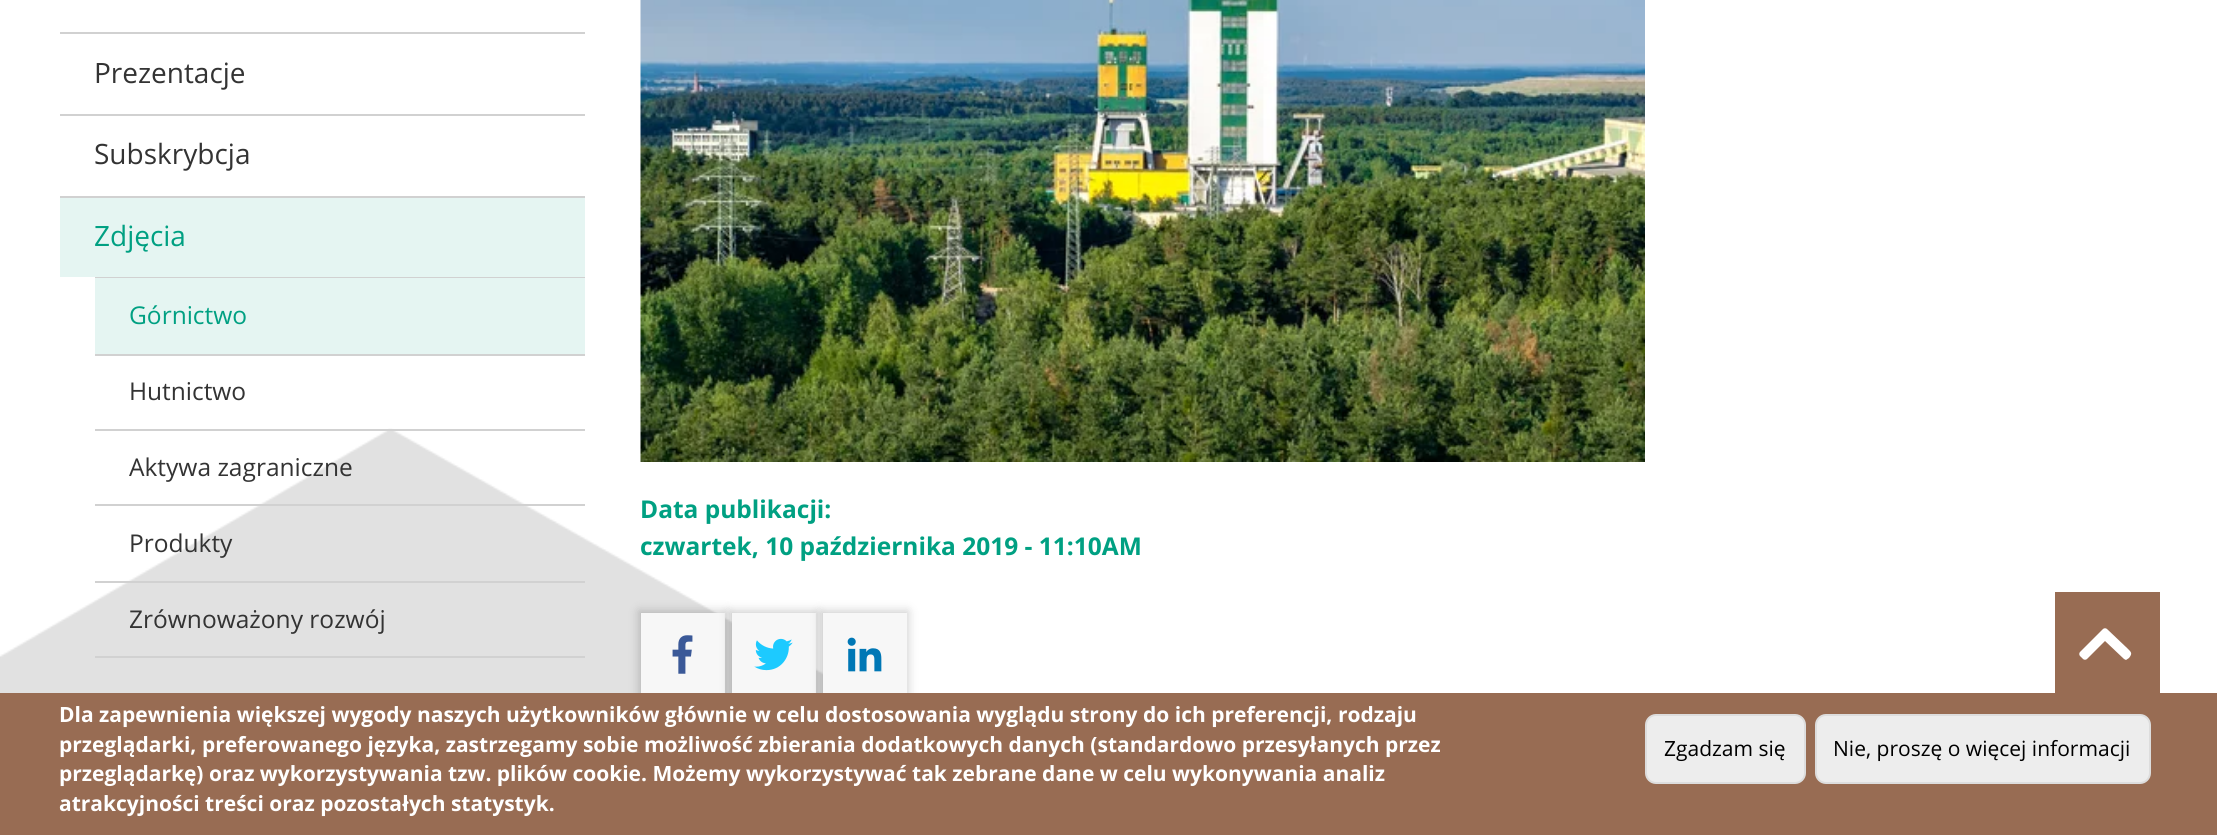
import math
import cairo



def rounded_rect(context, x, y, w, h, r):
    context.new_sub_path()
    for i, (u, v) in enumerate([(x + w - r, y + h - r), (x + r, y + h - r), (x + r, y + r), (x + w - r, y + r)]):
        context.arc(u, v, r, i * math.pi / 2, (i + 1) * math.pi / 2)
    context.close_path()


def draw_shadow(context, x, y, w, h, r, blur, alpha):
    context.push_group_with_content(cairo.Content.ALPHA)
    context.set_operator(cairo.Operator.SOURCE)
    for i in range(15, -16, -2):
        e = blur * i / 6
        if min(w, h) + 2 * e > 0:
            context.set_source_rgba(0, 0, 0, alpha * math.erfc((i - 1) / 8.5) / 2)
            rounded_rect(context, x - e, y - e, w + 2 * e, h + 2 * e, max(0, min(r + e + blur * .6, min(w, h) / 2 + e)))
            context.fill()
    context.mask(context.pop_group())


def draw_image(context, path, x, y, w, h):
    context.save()
    context.set_source_surface(cairo.ImageSurface.create_from_png(path), x, y)
    context.rectangle(x, y, w, h)
    context.fill()
    context.restore()


def draw(context):
    context.set_source_rgb(1, 1, 1)
    context.paint()
    draw_image(context, "images/1.png", 0, 428, 823, 265)
    context.set_source_rgb(209 / 255, 209 / 255, 209 / 255)
    context.rectangle(60, 32, 525, 2)
    context.fill()
    context.rectangle(60, 114, 525, 2)
    context.fill()
    context.rectangle(60, 196, 525, 2)
    context.fill()
    context.set_source_rgb(229 / 255, 245 / 255, 242 / 255)
    context.rectangle(60, 198, 525, 79)
    context.fill()
    context.set_source_rgb(209 / 255, 209 / 255, 209 / 255)
    context.rectangle(95, 277, 490, 1)
    context.fill()
    context.set_source_rgb(229 / 255, 245 / 255, 242 / 255)
    context.rectangle(95, 278, 490, 76)
    context.fill()
    context.set_source_rgb(209 / 255, 209 / 255, 209 / 255)
    context.rectangle(95, 354, 490, 2)
    context.fill()
    context.rectangle(95, 429, 490, 2)
    context.fill()
    context.rectangle(95, 504, 490, 2)
    context.fill()
    context.rectangle(95, 581, 490, 2)
    context.fill()
    context.rectangle(95, 656, 490, 2)
    context.fill()
    draw_image(context, "images/2.png", 640, 0, 1005, 462)
    context.set_source_rgb(0, 0, 0)
    draw_shadow(context, 639, 611, 87, 87, 0, 5, 0.2)
    context.set_source_rgb(247 / 255, 247 / 255, 247 / 255)
    context.rectangle(641, 613, 84, 80)
    context.fill()
    draw_image(context, "images/3.png", 672, 635, 21, 39)
    context.set_source_rgb(0, 0, 0)
    draw_shadow(context, 730, 611, 87, 87, 0, 5, 0.2)
    context.set_source_rgb(247 / 255, 247 / 255, 247 / 255)
    context.rectangle(732, 613, 84, 80)
    context.fill()
    draw_image(context, "images/4.png", 754, 638, 39, 33)
    context.set_source_rgb(0, 0, 0)
    draw_shadow(context, 821, 611, 87, 87, 0, 5, 0.2)
    context.set_source_rgb(247 / 255, 247 / 255, 247 / 255)
    context.rectangle(823, 613, 84, 80)
    context.fill()
    draw_image(context, "images/5.png", 847, 637, 35, 35)
    context.set_source_rgb(152 / 255, 108 / 255, 83 / 255)
    context.rectangle(0, 693, 2217, 142)
    context.fill()
    context.set_source_rgb(237 / 255, 237 / 255, 237 / 255)
    rounded_rect(context, 1646, 715, 159, 68, 10)
    context.fill_preserve()
    context.set_source_rgb(221 / 255, 221 / 255, 221 / 255)
    context.stroke()
    context.set_source_rgb(237 / 255, 237 / 255, 237 / 255)
    rounded_rect(context, 1816, 715, 334, 68, 10)
    context.fill_preserve()
    context.set_source_rgb(221 / 255, 221 / 255, 221 / 255)
    context.stroke()
    context.set_source_rgb(152 / 255, 108 / 255, 83 / 255)
    context.rectangle(2055, 592, 105, 101)
    context.fill()
    context.set_source_rgb(1, 1, 1)
    context.new_path()
    context.move_to(2107, 629)
    context.line_to(2127, 648)
    context.curve_to(2131, 652, 2133, 653, 2129, 658)
    context.line_to(2126, 660)
    context.line_to(2124, 659)
    context.line_to(2105, 641)
    context.line_to(2087, 659)
    context.curve_to(2086, 660, 2084, 660, 2083, 659)
    context.line_to(2080, 656)
    context.curve_to(2079, 655, 2079, 653, 2080, 652)
    context.line_to(2103, 629)
    context.curve_to(2104, 628, 2106, 628, 2107, 629)
    context.close_path()
    context.fill()
    context.select_font_face("Open Sans")
    context.set_font_size(28)
    context.set_source_rgb(51 / 255, 51 / 255, 51 / 255)
    context.move_to(94, 83)
    context.show_text("Prezentacje")
    context.move_to(94, 164)
    context.show_text("Subskrybcja")
    context.set_source_rgb(0, 160 / 255, 130 / 255)
    context.move_to(94, 246)
    context.show_text("Zdjęcia")
    context.set_font_size(24.5)
    context.move_to(129, 324)
    context.show_text("Górnictwo")
    context.set_source_rgb(51 / 255, 51 / 255, 51 / 255)
    context.move_to(129, 400)
    context.show_text("Hutnictwo")
    context.move_to(129, 476)
    context.show_text("Aktywa zagraniczne")
    context.move_to(129, 552)
    context.show_text("Produkty")
    context.move_to(129, 628)
    context.show_text("Zrównoważony rozwój")
    context.select_font_face("Open Sans", cairo.FontSlant.NORMAL, cairo.FontWeight.BOLD)
    context.set_source_rgb(0, 160 / 255, 130 / 255)
    context.move_to(640, 518)
    context.show_text("Data publikacji:")
    context.move_to(640, 555)
    context.show_text("czwartek, 10 października 2019 - 11:10AM")
    context.set_font_size(21)
    context.set_source_rgb(1, 1, 1)
    context.move_to(59, 722)
    context.show_text("Dla zapewnienia większej wygody naszych użytkowników głównie w celu dostosowania wyglądu strony do ich preferencji, rodzaju")
    context.move_to(59, 752)
    context.show_text("przeglądarki, preferowanego języka, zastrzegamy sobie możliwość zbierania dodatkowych danych (standardowo przesyłanych przez")
    context.move_to(59, 781)
    context.show_text("przeglądarkę) oraz wykorzystywania tzw. plików cookie. Możemy wykorzystywać tak zebrane dane w celu wykonywania analiz")
    context.move_to(59, 811)
    context.show_text("atrakcyjności treści oraz pozostałych statystyk.")
    context.select_font_face("Open Sans")
    context.set_source_rgb(0, 0, 0)
    context.move_to(1664, 756)
    context.show_text("Zgadzam się")
    context.move_to(1833, 756)
    context.show_text("Nie, proszę o więcej informacji")


surface = cairo.ImageSurface(cairo.Format.RGB24, 2217, 835)
context = cairo.Context(surface)
options = cairo.FontOptions()
options.set_hint_metrics(cairo.HintMetrics.OFF)
options.set_hint_style(cairo.HintStyle.NONE)
context.set_font_options(options)
context.set_miter_limit(4)
draw(context)
surface.write_to_png("out.png")
